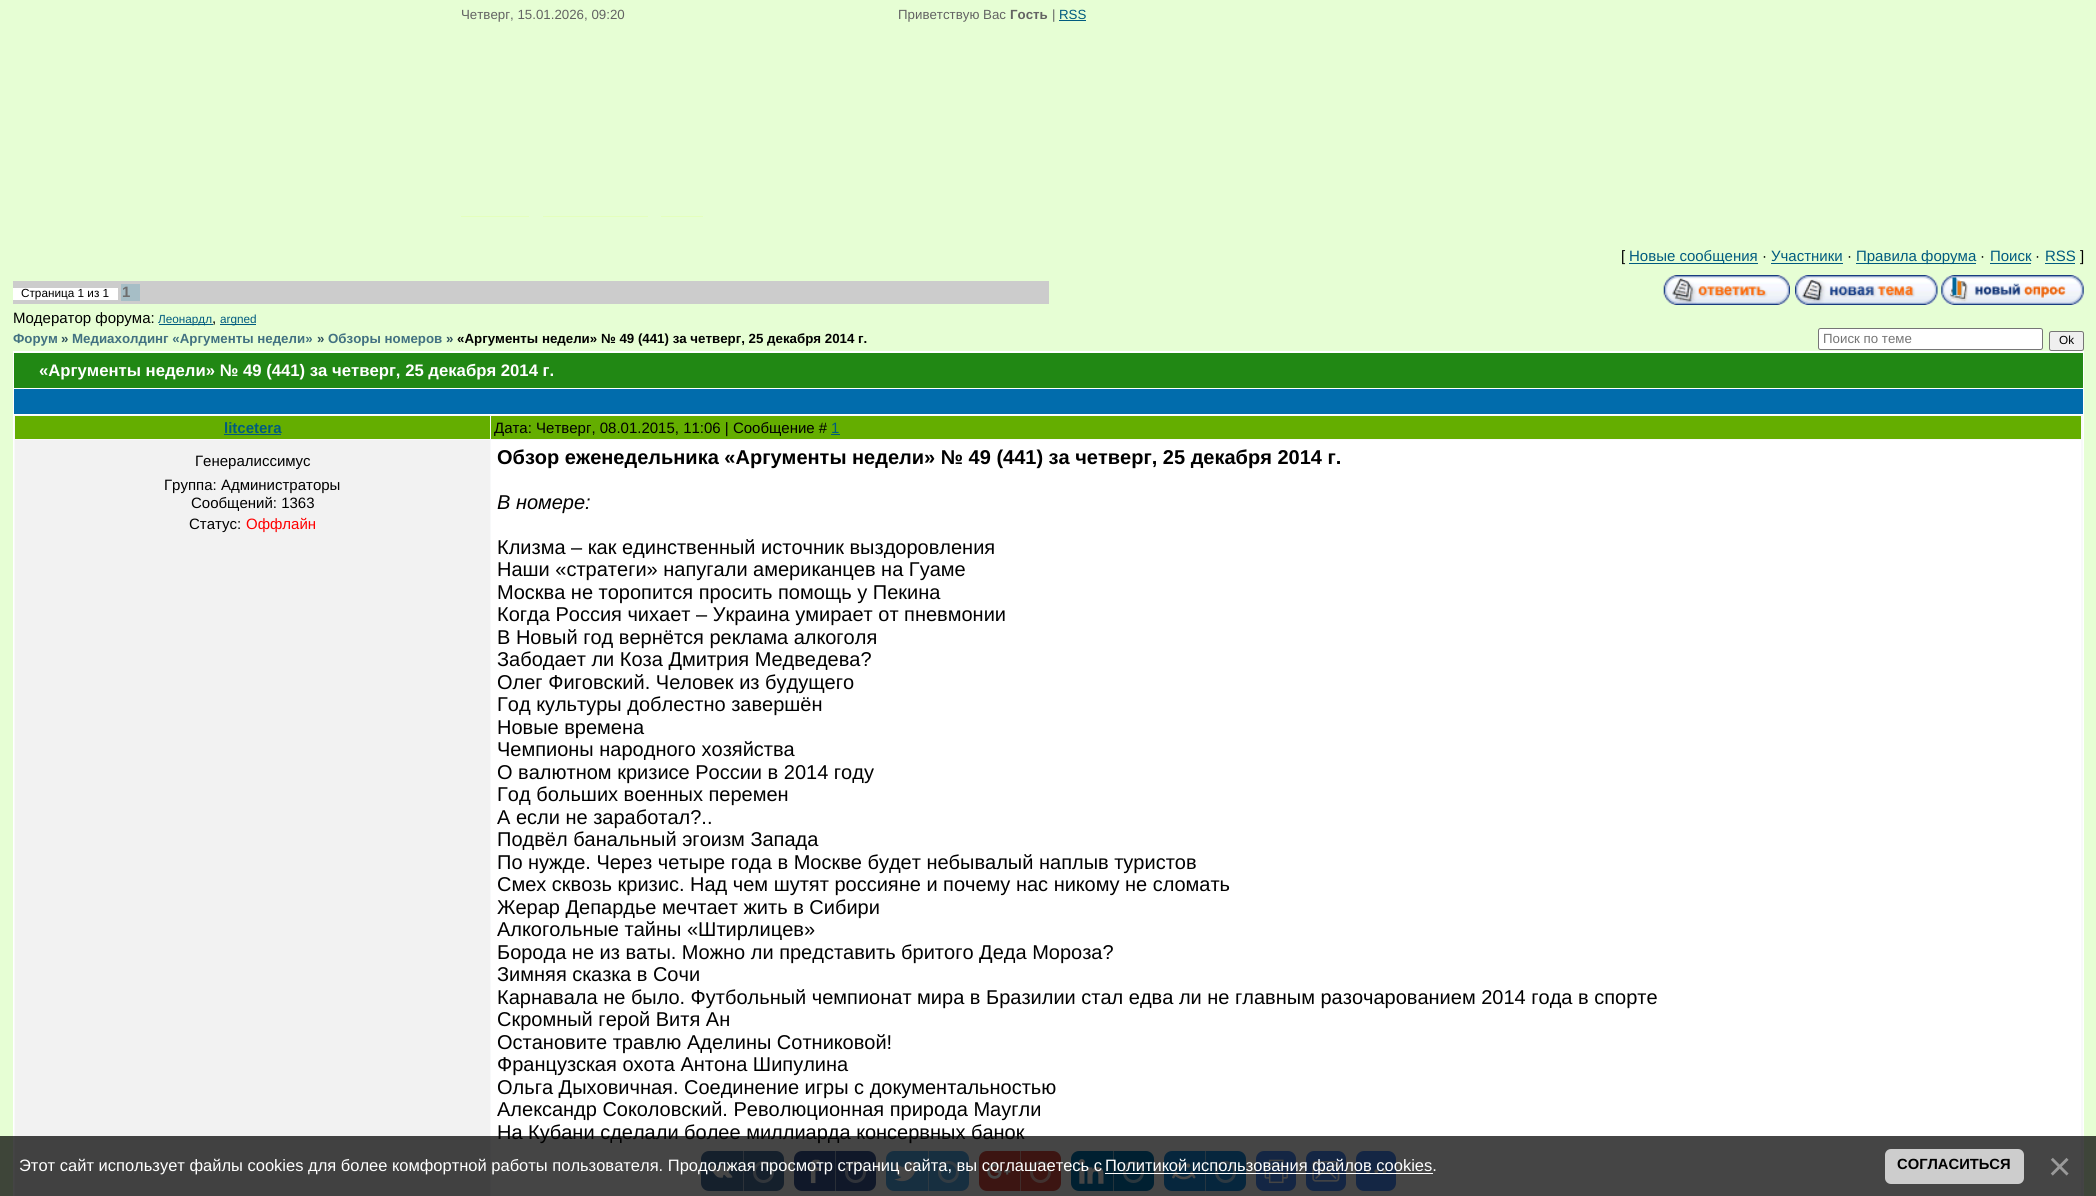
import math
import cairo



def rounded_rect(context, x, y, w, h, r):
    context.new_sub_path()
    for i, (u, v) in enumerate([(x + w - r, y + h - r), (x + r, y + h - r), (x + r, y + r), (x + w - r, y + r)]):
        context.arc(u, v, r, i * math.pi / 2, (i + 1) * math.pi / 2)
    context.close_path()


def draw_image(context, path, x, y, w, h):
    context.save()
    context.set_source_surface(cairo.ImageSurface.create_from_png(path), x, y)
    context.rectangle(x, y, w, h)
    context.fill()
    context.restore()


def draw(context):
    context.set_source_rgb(230 / 255, 254 / 255, 212 / 255)
    context.paint()
    context.set_source_rgb(0, 91 / 255, 127 / 255)
    context.rectangle(1059, 20, 27, 1)
    context.fill()
    context.set_source_rgb(228 / 255, 1, 189 / 255)
    context.rectangle(461, 216, 68, 1)
    context.fill()
    context.rectangle(543, 216, 105, 1)
    context.fill()
    context.rectangle(661, 216, 42, 1)
    context.fill()
    context.set_source_rgb(0, 91 / 255, 127 / 255)
    context.rectangle(1629, 263, 129, 1)
    context.fill()
    context.rectangle(1771, 263, 72, 1)
    context.fill()
    context.rectangle(1856, 263, 120, 1)
    context.fill()
    context.rectangle(1990, 263, 41, 1)
    context.fill()
    context.rectangle(2045, 263, 30, 1)
    context.fill()
    context.set_source_rgb(204 / 255, 204 / 255, 204 / 255)
    context.rectangle(13, 281, 1036, 23)
    context.fill()
    context.set_source_rgb(1, 1, 1)
    context.rectangle(13, 288, 105, 12)
    context.fill()
    context.set_source_rgb(166 / 255, 190 / 255, 198 / 255)
    context.rectangle(121, 284, 19, 17)
    context.fill()
    draw_image(context, "images/1.png", 1663, 275, 127, 30)
    draw_image(context, "images/2.png", 1795, 275, 143, 30)
    draw_image(context, "images/3.png", 1941, 275, 143, 30)
    context.set_source_rgb(0, 91 / 255, 127 / 255)
    context.rectangle(159, 324, 54, 1)
    context.fill()
    context.rectangle(220, 324, 36, 1)
    context.fill()
    context.set_source_rgb(1, 1, 1)
    rounded_rect(context, 1818.5, 328.5, 224, 21, 2)
    context.fill_preserve()
    context.set_source_rgb(118 / 255, 118 / 255, 118 / 255)
    context.set_line_width(1)
    context.stroke()
    context.set_source_rgb(239 / 255, 239 / 255, 239 / 255)
    rounded_rect(context, 2049.5, 331.5, 34, 19, 2)
    context.fill_preserve()
    context.set_source_rgb(118 / 255, 118 / 255, 118 / 255)
    context.stroke()
    context.set_source_rgb(1, 1, 1)
    context.rectangle(13, 351, 2071, 845)
    context.fill()
    context.set_source_rgb(33 / 255, 136 / 255, 20 / 255)
    context.rectangle(14, 353, 2069, 35)
    context.fill()
    context.set_source_rgb(1 / 255, 108 / 255, 172 / 255)
    context.rectangle(14, 389, 2069, 25)
    context.fill()
    context.set_source_rgb(248 / 255, 249 / 255, 250 / 255)
    context.rectangle(14, 415, 2069, 781)
    context.fill()
    context.set_source_rgb(100 / 255, 174 / 255, 0)
    context.rectangle(15, 416, 475, 23)
    context.fill()
    context.set_source_rgb(0, 91 / 255, 127 / 255)
    context.rectangle(224, 434, 57, 1)
    context.fill()
    context.set_source_rgb(100 / 255, 174 / 255, 0)
    context.rectangle(491, 416, 1590, 23)
    context.fill()
    context.set_source_rgb(0, 91 / 255, 127 / 255)
    context.rectangle(831, 434, 9, 1)
    context.fill()
    context.set_source_rgb(242 / 255, 242 / 255, 242 / 255)
    context.rectangle(15, 440, 475, 756)
    context.fill()
    context.set_source_rgb(1, 1, 1)
    context.rectangle(491, 440, 1590, 756)
    context.fill()
    context.set_source_rgb(77 / 255, 117 / 255, 163 / 255)
    rounded_rect(context, 701, 1151, 83, 40, 8)
    context.fill()
    draw_image(context, "images/4.png", 710, 1165, 23, 13)
    context.set_source_rgb(166 / 255, 186 / 255, 209 / 255)
    context.rectangle(743, 1151, 1, 40)
    context.fill()
    rounded_rect(context, 754.5, 1162.5, 18, 19, 9)
    context.set_source_rgb(184 / 255, 200 / 255, 218 / 255)
    context.set_line_width(3)
    context.stroke()
    context.set_source_rgb(59 / 255, 89 / 255, 152 / 255)
    rounded_rect(context, 794, 1151, 82, 40, 8)
    context.fill()
    draw_image(context, "images/5.png", 808, 1159, 12, 25)
    context.set_source_rgb(157 / 255, 172 / 255, 204 / 255)
    context.rectangle(835, 1151, 1, 40)
    context.fill()
    rounded_rect(context, 846.5, 1162.5, 18, 19, 9)
    context.set_source_rgb(177 / 255, 189 / 255, 214 / 255)
    context.stroke()
    context.set_source_rgb(85 / 255, 172 / 255, 238 / 255)
    rounded_rect(context, 886, 1151, 83, 40, 8)
    context.fill()
    draw_image(context, "images/6.png", 894, 1161, 25, 21)
    context.set_source_rgb(170 / 255, 214 / 255, 247 / 255)
    context.rectangle(928, 1151, 1, 40)
    context.fill()
    rounded_rect(context, 939.5, 1162.5, 18, 19, 9)
    context.set_source_rgb(187 / 255, 222 / 255, 248 / 255)
    context.stroke()
    context.set_source_rgb(220 / 255, 78 / 255, 65 / 255)
    rounded_rect(context, 979, 1151, 82, 40, 8)
    context.fill()
    draw_image(context, "images/7.png", 987, 1164, 24, 15)
    context.set_source_rgb(238 / 255, 167 / 255, 160 / 255)
    context.rectangle(1020, 1151, 1, 40)
    context.fill()
    rounded_rect(context, 1031.5, 1162.5, 18, 19, 9)
    context.set_source_rgb(241 / 255, 184 / 255, 179 / 255)
    context.stroke()
    context.set_source_rgb(0, 119 / 255, 181 / 255)
    rounded_rect(context, 1071, 1151, 83, 40, 8)
    context.fill()
    draw_image(context, "images/8.png", 1078, 1159, 26, 25)
    context.set_source_rgb(128 / 255, 187 / 255, 218 / 255)
    context.rectangle(1113, 1151, 1, 40)
    context.fill()
    rounded_rect(context, 1124.5, 1162.5, 18, 19, 9)
    context.set_source_rgb(153 / 255, 201 / 255, 225 / 255)
    context.stroke()
    context.set_source_rgb(22 / 255, 141 / 255, 226 / 255)
    rounded_rect(context, 1164, 1151, 82, 40, 8)
    context.fill()
    draw_image(context, "images/9.png", 1172, 1163, 24, 17)
    context.set_source_rgb(139 / 255, 198 / 255, 241 / 255)
    context.rectangle(1205, 1151, 1, 40)
    context.fill()
    rounded_rect(context, 1216.5, 1162.5, 18, 19, 9)
    context.set_source_rgb(162 / 255, 209 / 255, 243 / 255)
    context.stroke()
    context.set_source_rgb(73 / 255, 139 / 255, 250 / 255)
    rounded_rect(context, 1256, 1151, 40, 40, 8)
    context.fill()
    draw_image(context, "images/10.png", 1264, 1159, 24, 25)
    rounded_rect(context, 1306, 1151, 40, 40, 8)
    context.fill()
    draw_image(context, "images/11.png", 1312, 1161, 28, 21)
    rounded_rect(context, 1356, 1151, 40, 40, 8)
    context.fill()
    draw_image(context, "images/12.png", 1366, 1169, 21, 4)
    context.select_font_face("Liberation Sans")
    context.set_font_size(13.3)
    context.set_source_rgb(99 / 255, 99 / 255, 99 / 255)
    context.move_to(461, 19)
    context.show_text("Четверг, 15.01.2026, 09:20")
    context.move_to(898, 19)
    context.show_text("Приветствую Вас")
    context.select_font_face("Liberation Sans", cairo.FontSlant.NORMAL, cairo.FontWeight.BOLD)
    context.move_to(1010, 19)
    context.show_text("Гость")
    context.select_font_face("Liberation Sans")
    context.move_to(1052, 19)
    context.show_text("|")
    context.set_source_rgb(0, 91 / 255, 127 / 255)
    context.move_to(1059, 19)
    context.show_text("RSS")
    context.set_font_size(15)
    context.set_source_rgb(0, 0, 0)
    context.move_to(1621, 261)
    context.show_text("[")
    context.set_source_rgb(0, 91 / 255, 127 / 255)
    context.move_to(1629, 261)
    context.show_text("Новые сообщения")
    context.set_source_rgb(0, 0, 0)
    context.move_to(1762, 261)
    context.show_text("·")
    context.set_source_rgb(0, 91 / 255, 127 / 255)
    context.move_to(1771, 261)
    context.show_text("Участники")
    context.set_source_rgb(0, 0, 0)
    context.move_to(1847, 261)
    context.show_text("·")
    context.set_source_rgb(0, 91 / 255, 127 / 255)
    context.move_to(1856, 261)
    context.show_text("Правила форума")
    context.set_source_rgb(0, 0, 0)
    context.move_to(1980, 261)
    context.show_text("·")
    context.set_source_rgb(0, 91 / 255, 127 / 255)
    context.move_to(1990, 261)
    context.show_text("Поиск")
    context.set_source_rgb(0, 0, 0)
    context.move_to(2035, 261)
    context.show_text("·")
    context.set_source_rgb(0, 91 / 255, 127 / 255)
    context.move_to(2045, 261)
    context.show_text("RSS")
    context.set_source_rgb(0, 0, 0)
    context.move_to(2080, 261)
    context.show_text("]")
    context.set_font_size(11.75)
    context.move_to(21, 297)
    context.show_text("Страница 1 из 1")
    context.select_font_face("Liberation Sans", cairo.FontSlant.NORMAL, cairo.FontWeight.BOLD)
    context.set_font_size(15)
    context.set_source_rgb(110 / 255, 110 / 255, 110 / 255)
    context.move_to(122, 297)
    context.show_text("1")
    context.select_font_face("Liberation Sans")
    context.set_source_rgb(0, 0, 0)
    context.move_to(13, 323)
    context.show_text("Модератор форума:")
    context.set_font_size(11.75)
    context.set_source_rgb(0, 91 / 255, 127 / 255)
    context.move_to(158, 323)
    context.show_text("Леонардл")
    context.set_font_size(15)
    context.set_source_rgb(0, 0, 0)
    context.move_to(212, 323)
    context.show_text(",")
    context.set_font_size(11.75)
    context.set_source_rgb(0, 91 / 255, 127 / 255)
    context.move_to(220, 323)
    context.show_text("argned")
    context.select_font_face("Liberation Sans", cairo.FontSlant.NORMAL, cairo.FontWeight.BOLD)
    context.set_font_size(13.3)
    context.set_source_rgb(66 / 255, 113 / 255, 129 / 255)
    context.move_to(13, 343)
    context.show_text("Форум")
    context.set_source_rgb(47 / 255, 81 / 255, 92 / 255)
    context.move_to(61, 343)
    context.show_text("»")
    context.set_source_rgb(66 / 255, 113 / 255, 129 / 255)
    context.move_to(72, 343)
    context.show_text("Медиахолдинг «Аргументы недели»")
    context.set_source_rgb(47 / 255, 81 / 255, 92 / 255)
    context.move_to(317, 343)
    context.show_text("»")
    context.set_source_rgb(66 / 255, 113 / 255, 129 / 255)
    context.move_to(328, 343)
    context.show_text("Обзоры номеров")
    context.set_source_rgb(47 / 255, 81 / 255, 92 / 255)
    context.move_to(446, 343)
    context.show_text("»")
    context.set_source_rgb(0, 0, 0)
    context.move_to(457, 343)
    context.show_text("«Аргументы недели» № 49 (441) за четверг, 25 декабря 2014 г.")
    context.select_font_face("Liberation Sans")
    context.set_source_rgb(117 / 255, 117 / 255, 117 / 255)
    context.move_to(1823, 343)
    context.show_text("Поиск по теме")
    context.set_font_size(11.75)
    context.set_source_rgb(0, 0, 0)
    context.move_to(2059, 344)
    context.show_text("Ok")
    context.select_font_face("Liberation Sans", cairo.FontSlant.NORMAL, cairo.FontWeight.BOLD)
    context.set_font_size(16.7)
    context.set_source_rgb(1, 1, 1)
    context.move_to(39, 376)
    context.show_text("«Аргументы недели» № 49 (441) за четверг, 25 декабря 2014 г.")
    context.set_font_size(15)
    context.set_source_rgb(0, 91 / 255, 127 / 255)
    context.move_to(224, 433)
    context.show_text("litcetera")
    context.select_font_face("Liberation Sans")
    context.set_source_rgb(0, 0, 0)
    context.move_to(494, 433)
    context.show_text("Дата: Четверг, 08.01.2015, 11:06 | Сообщение #")
    context.set_source_rgb(0, 91 / 255, 127 / 255)
    context.move_to(831, 433)
    context.show_text("1")
    context.set_source_rgb(0, 0, 0)
    context.move_to(195, 466)
    context.show_text("Генералиссимус")
    context.move_to(164, 490)
    context.show_text("Группа: Администраторы")
    context.move_to(191, 508)
    context.show_text("Сообщений: 1363")
    context.move_to(189, 529)
    context.show_text("Статус:")
    context.set_source_rgb(1, 0, 0)
    context.move_to(246, 529)
    context.show_text("Оффлайн")
    context.select_font_face("Liberation Sans", cairo.FontSlant.NORMAL, cairo.FontWeight.BOLD)
    context.set_font_size(20)
    context.set_source_rgb(0, 0, 0)
    context.move_to(497, 464)
    context.show_text("Обзор еженедельника «Аргументы недели» № 49 (441) за четверг, 25 декабря 2014 г.")
    context.select_font_face("Liberation Sans", cairo.FontSlant.ITALIC)
    context.move_to(497, 509)
    context.show_text("В номере:")
    context.select_font_face("Liberation Sans")
    context.move_to(497, 554)
    context.show_text("Клизма – как единственный источник выздоровления")
    context.move_to(497, 576)
    context.show_text("Наши «стратеги» напугали американцев на Гуаме")
    context.move_to(497, 599)
    context.show_text("Москва не торопится просить помощь у Пекина")
    context.move_to(497, 621)
    context.show_text("Когда Россия чихает – Украина умирает от пневмонии")
    context.move_to(497, 644)
    context.show_text("В Новый год вернётся реклама алкоголя")
    context.move_to(497, 666)
    context.show_text("Забодает ли Коза Дмитрия Медведева?")
    context.move_to(497, 689)
    context.show_text("Олег Фиговский. Человек из будущего")
    context.move_to(497, 711)
    context.show_text("Год культуры доблестно завершён")
    context.move_to(497, 734)
    context.show_text("Новые времена")
    context.move_to(497, 756)
    context.show_text("Чемпионы народного хозяйства")
    context.move_to(497, 779)
    context.show_text("О валютном кризисе России в 2014 году")
    context.move_to(497, 801)
    context.show_text("Год больших военных перемен")
    context.move_to(497, 824)
    context.show_text("А если не заработал?..")
    context.move_to(497, 846)
    context.show_text("Подвёл банальный эгоизм Запада")
    context.move_to(497, 869)
    context.show_text("По нужде. Через четыре года в Москве будет небывалый наплыв туристов")
    context.move_to(497, 891)
    context.show_text("Смех сквозь кризис. Над чем шутят россияне и почему нас никому не сломать")
    context.move_to(497, 914)
    context.show_text("Жерар Депардье мечтает жить в Сибири")
    context.move_to(497, 936)
    context.show_text("Алкогольные тайны «Штирлицев»")
    context.move_to(497, 959)
    context.show_text("Борода не из ваты. Можно ли представить бритого Деда Мороза?")
    context.move_to(497, 981)
    context.show_text("Зимняя сказка в Сочи")
    context.move_to(497, 1004)
    context.show_text("Карнавала не было. Футбольный чемпионат мира в Бразилии стал едва ли не главным разочарованием 2014 года в спорте")
    context.move_to(497, 1026)
    context.show_text("Скромный герой Витя Ан")
    context.move_to(497, 1049)
    context.show_text("Остановите травлю Аделины Сотниковой!")
    context.move_to(497, 1071)
    context.show_text("Французская охота Антона Шипулина")
    context.move_to(497, 1094)
    context.show_text("Ольга Дыховичная. Соединение игры с документальностью")
    context.move_to(497, 1116)
    context.show_text("Александр Соколовский. Революционная природа Маугли")
    context.move_to(497, 1139)
    context.show_text("На Кубани сделали более миллиарда консервных банок")
    context.set_source_rgba(0, 0, 0, 0.73)
    context.rectangle(0, 1136, 2096, 60)
    context.fill()
    context.set_font_size(16.5)
    context.set_source_rgb(1, 1, 1)
    context.move_to(19, 1171)
    context.show_text("Этот сайт использует файлы cookies для более комфортной работы пользователя. Продолжая просмотр страниц сайта, вы соглашаетесь с")
    context.rectangle(1105, 1173, 328, 1)
    context.fill()
    context.move_to(1105, 1171)
    context.show_text("Политикой использования файлов cookies.")
    context.set_source_rgb(205 / 255, 205 / 255, 205 / 255)
    rounded_rect(context, 1885, 1149, 139, 35, 6)
    context.fill()
    context.select_font_face("Liberation Sans", cairo.FontSlant.NORMAL, cairo.FontWeight.BOLD)
    context.set_font_size(14.75)
    context.set_source_rgb(0, 0, 0)
    context.move_to(1897, 1169)
    context.show_text("СОГЛАСИТЬСЯ")
    context.select_font_face("Liberation Sans")
    context.set_font_size(40)
    context.set_source_rgb(153 / 255, 153 / 255, 153 / 255)
    context.move_to(2048, 1180)
    context.show_text("×")


surface = cairo.ImageSurface(cairo.Format.RGB24, 2096, 1196)
context = cairo.Context(surface)
options = cairo.FontOptions()
options.set_hint_metrics(cairo.HintMetrics.OFF)
options.set_hint_style(cairo.HintStyle.NONE)
context.set_font_options(options)
context.set_miter_limit(4)
draw(context)
surface.write_to_png("out.png")
